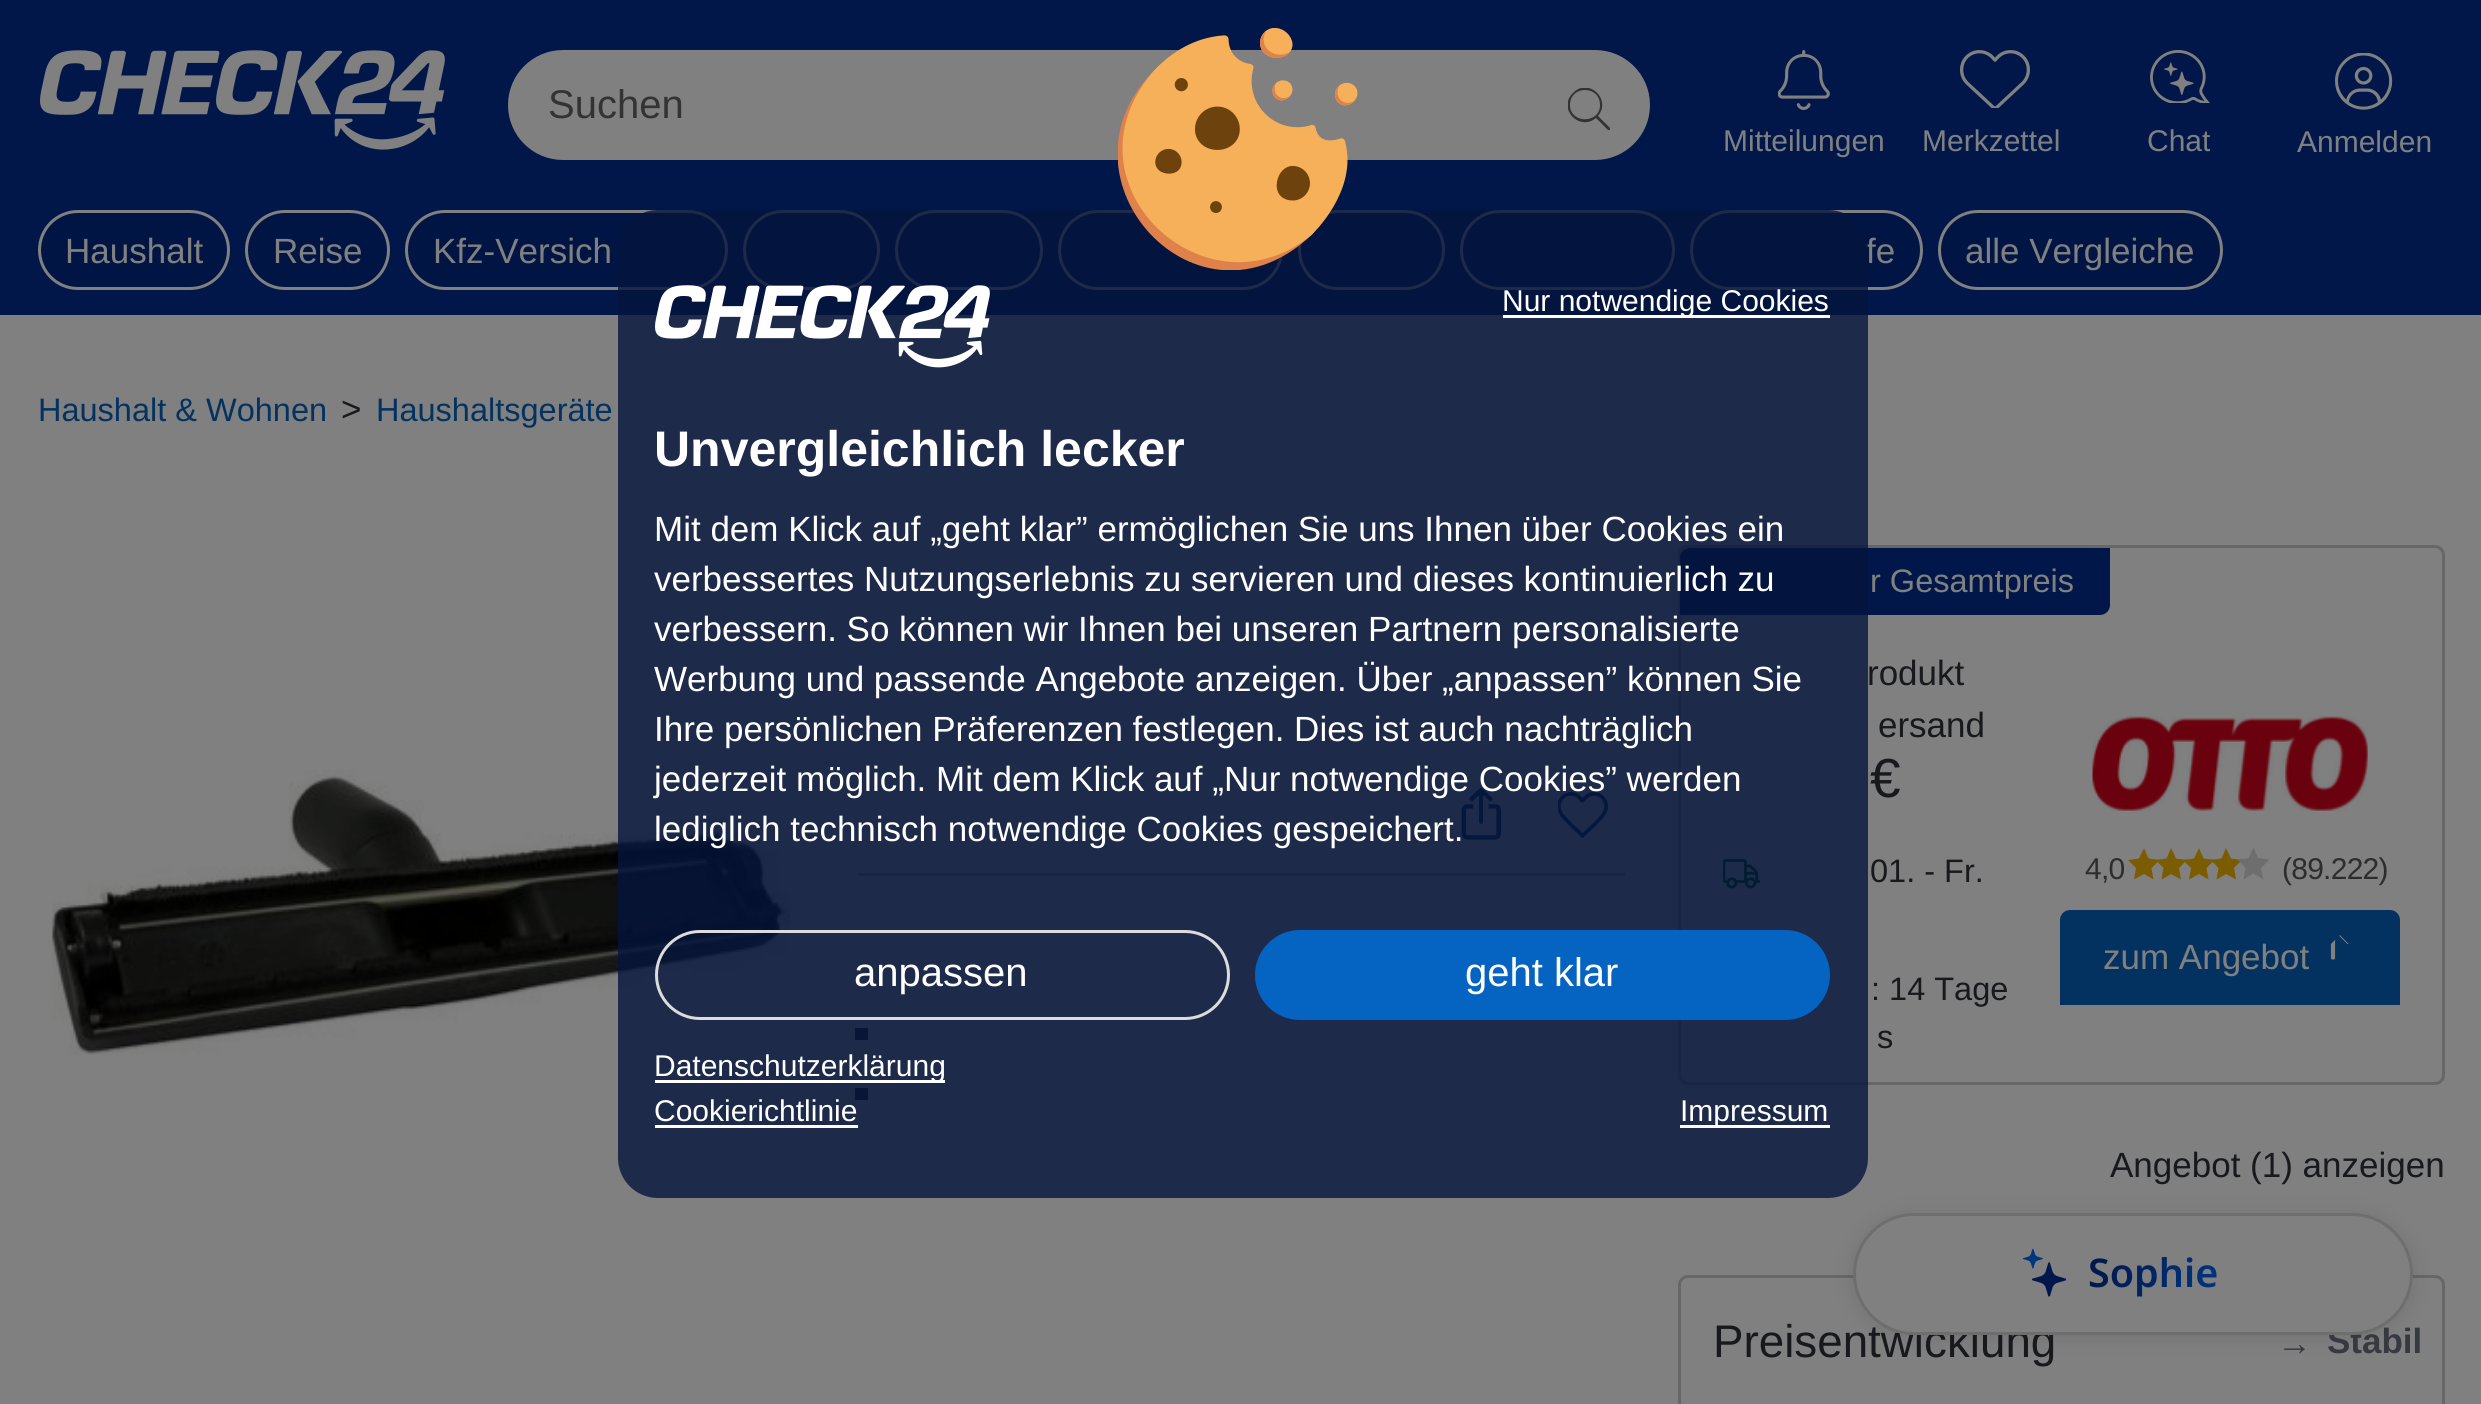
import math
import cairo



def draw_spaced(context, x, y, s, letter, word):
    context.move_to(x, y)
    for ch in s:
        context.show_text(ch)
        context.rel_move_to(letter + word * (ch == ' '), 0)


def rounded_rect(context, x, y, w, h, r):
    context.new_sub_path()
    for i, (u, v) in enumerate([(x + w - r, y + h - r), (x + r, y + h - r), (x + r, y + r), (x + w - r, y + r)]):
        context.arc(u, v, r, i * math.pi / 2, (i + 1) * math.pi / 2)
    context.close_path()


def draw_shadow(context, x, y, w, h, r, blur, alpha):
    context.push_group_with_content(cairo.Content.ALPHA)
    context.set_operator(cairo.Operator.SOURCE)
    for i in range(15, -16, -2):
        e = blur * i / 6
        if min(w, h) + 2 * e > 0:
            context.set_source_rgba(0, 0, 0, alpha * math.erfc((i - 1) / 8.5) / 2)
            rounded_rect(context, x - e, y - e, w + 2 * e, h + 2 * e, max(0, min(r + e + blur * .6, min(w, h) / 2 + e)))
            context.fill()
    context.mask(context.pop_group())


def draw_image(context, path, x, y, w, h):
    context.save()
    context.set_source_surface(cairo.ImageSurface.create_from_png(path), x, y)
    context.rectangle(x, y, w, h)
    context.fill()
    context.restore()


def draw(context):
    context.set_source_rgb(128 / 255, 128 / 255, 128 / 255)
    context.paint()
    context.set_source_rgb(1 / 255, 23 / 255, 74 / 255)
    context.rectangle(0, 0, 2481, 315)
    context.fill()
    draw_image(context, "images/1.png", 40, 50, 405, 100)
    context.set_source_rgb(128 / 255, 128 / 255, 128 / 255)
    rounded_rect(context, 508, 50, 1142, 110, 55)
    context.fill()
    context.save()
    context.rectangle(1568, 88, 42, 42)
    context.clip()
    context.set_source_rgb(51 / 255, 51 / 255, 51 / 255)
    context.new_path()
    context.move_to(1610, 128)
    context.line_to(1598, 116)
    context.curve_to(1612, 99, 1588, 77, 1573, 93)
    context.curve_to(1557, 108, 1579, 132, 1596, 118)
    context.line_to(1608, 130)
    context.curve_to(1609, 131, 1611, 129, 1610, 128)
    context.close_path()
    context.move_to(1600, 105)
    context.curve_to(1600, 124, 1570, 124, 1570, 105)
    context.curve_to(1570, 85, 1600, 85, 1600, 105)
    context.close_path()
    context.fill()
    context.restore()
    draw_image(context, "images/2.png", 1778, 50, 52, 60)
    draw_image(context, "images/3.png", 1960, 50, 70, 58)
    draw_image(context, "images/4.png", 2150, 50, 60, 53)
    draw_image(context, "images/5.png", 2335, 53, 58, 57)
    context.set_source_rgb(1 / 255, 21 / 255, 69 / 255)
    rounded_rect(context, 39.5, 211.5, 189, 77, 38.5)
    context.fill_preserve()
    context.set_source_rgb(128 / 255, 128 / 255, 128 / 255)
    context.set_line_width(3)
    context.stroke()
    context.set_source_rgb(1 / 255, 21 / 255, 69 / 255)
    rounded_rect(context, 246.5, 211.5, 142, 77, 38.5)
    context.fill_preserve()
    context.set_source_rgb(128 / 255, 128 / 255, 128 / 255)
    context.stroke()
    context.set_source_rgb(1 / 255, 21 / 255, 69 / 255)
    rounded_rect(context, 406.5, 211.5, 320, 77, 38.5)
    context.fill_preserve()
    context.set_source_rgb(128 / 255, 128 / 255, 128 / 255)
    context.stroke()
    context.set_source_rgb(1 / 255, 21 / 255, 69 / 255)
    rounded_rect(context, 744.5, 211.5, 134, 77, 38.5)
    context.fill_preserve()
    context.set_source_rgb(128 / 255, 128 / 255, 128 / 255)
    context.stroke()
    context.set_source_rgb(1 / 255, 21 / 255, 69 / 255)
    rounded_rect(context, 896.5, 211.5, 145, 77, 38.5)
    context.fill_preserve()
    context.set_source_rgb(128 / 255, 128 / 255, 128 / 255)
    context.stroke()
    context.set_source_rgb(1 / 255, 21 / 255, 69 / 255)
    rounded_rect(context, 1059.5, 211.5, 222, 77, 38.5)
    context.fill_preserve()
    context.set_source_rgb(128 / 255, 128 / 255, 128 / 255)
    context.stroke()
    context.set_source_rgb(1 / 255, 21 / 255, 69 / 255)
    rounded_rect(context, 1299.5, 211.5, 144, 77, 38.5)
    context.fill_preserve()
    context.set_source_rgb(128 / 255, 128 / 255, 128 / 255)
    context.stroke()
    context.set_source_rgb(1 / 255, 21 / 255, 69 / 255)
    rounded_rect(context, 1461.5, 211.5, 212, 77, 38.5)
    context.fill_preserve()
    context.set_source_rgb(128 / 255, 128 / 255, 128 / 255)
    context.stroke()
    context.set_source_rgb(1 / 255, 21 / 255, 69 / 255)
    rounded_rect(context, 1691.5, 211.5, 230, 77, 38.5)
    context.fill_preserve()
    context.set_source_rgb(128 / 255, 128 / 255, 128 / 255)
    context.stroke()
    context.set_source_rgb(1 / 255, 21 / 255, 69 / 255)
    rounded_rect(context, 1939.5, 211.5, 282, 77, 38.5)
    context.fill_preserve()
    context.set_source_rgb(128 / 255, 128 / 255, 128 / 255)
    context.stroke()
    draw_image(context, "images/6.png", 52, 769, 738, 286)
    context.set_source_rgb(104 / 255, 102 / 255, 102 / 255)
    context.rectangle(858, 873, 767, 3)
    context.fill()
    draw_image(context, "images/7.png", 1461, 787, 40, 53)
    draw_image(context, "images/8.png", 1558, 792, 50, 46)
    context.set_source_rgb(23 / 255, 25 / 255, 28 / 255)
    context.rectangle(855, 1028, 13, 12)
    context.fill()
    context.rectangle(855, 1088, 13, 12)
    context.fill()
    rounded_rect(context, 1679.5, 546.5, 764, 537, 8.5)
    context.set_source_rgb(103 / 255, 103 / 255, 103 / 255)
    context.stroke()
    context.set_source_rgb(1 / 255, 23 / 255, 74 / 255)
    context.new_path()
    context.move_to(1690, 548)
    context.line_to(2110, 548)
    context.line_to(2110, 605)
    context.curve_to(2110, 610.5, 2105.5, 615, 2100, 615)
    context.line_to(1680, 615)
    context.line_to(1680, 558)
    context.curve_to(1680, 552.5, 1684.5, 548, 1690, 548)
    context.close_path()
    context.fill()
    draw_image(context, "images/9.png", 1723, 859, 37, 30)
    draw_image(context, "images/10.png", 2092, 716, 276, 95)
    context.set_source_rgb(123 / 255, 92 / 255, 0)
    context.new_path()
    context.move_to(2144, 848)
    context.line_to(2139, 858.5)
    context.line_to(2128, 860)
    context.line_to(2136, 868)
    context.line_to(2134, 879.5)
    context.line_to(2144, 874)
    context.line_to(2153.5, 879.5)
    context.line_to(2151.5, 868)
    context.line_to(2159.5, 860)
    context.line_to(2148.5, 858.5)
    context.close_path()
    context.fill()
    context.new_path()
    context.move_to(2171, 848)
    context.line_to(2166.5, 858.5)
    context.line_to(2155.5, 860)
    context.line_to(2163.5, 868)
    context.line_to(2161.5, 879.5)
    context.line_to(2171, 874)
    context.line_to(2181, 879.5)
    context.line_to(2179, 868)
    context.line_to(2187, 860)
    context.line_to(2176, 858.5)
    context.close_path()
    context.fill()
    context.new_path()
    context.move_to(2199, 848)
    context.line_to(2194, 858.5)
    context.line_to(2183, 860)
    context.line_to(2191, 868)
    context.line_to(2189, 879.5)
    context.line_to(2199, 874)
    context.line_to(2208.5, 879.5)
    context.line_to(2206.5, 868)
    context.line_to(2214.5, 860)
    context.line_to(2203.5, 858.5)
    context.close_path()
    context.fill()
    context.new_path()
    context.move_to(2226, 848)
    context.line_to(2221.5, 858.5)
    context.line_to(2210.5, 860)
    context.line_to(2218.5, 868)
    context.line_to(2216.5, 879.5)
    context.line_to(2226, 874)
    context.line_to(2236, 879.5)
    context.line_to(2234, 868)
    context.line_to(2242, 860)
    context.line_to(2231, 858.5)
    context.close_path()
    context.fill()
    context.set_source_rgb(110 / 255, 110 / 255, 110 / 255)
    context.new_path()
    context.move_to(2253.5, 847.5)
    context.line_to(2248.5, 858)
    context.line_to(2237.5, 859.5)
    context.line_to(2245.5, 868)
    context.line_to(2243.5, 879.5)
    context.line_to(2253.5, 873.5)
    context.line_to(2263.5, 879.5)
    context.line_to(2261, 868)
    context.line_to(2269.5, 859.5)
    context.line_to(2258, 858)
    context.close_path()
    context.fill()
    context.set_source_rgb(3 / 255, 50 / 255, 97 / 255)
    context.new_path()
    context.move_to(2070, 910)
    context.line_to(2390, 910)
    context.curve_to(2395.5, 910, 2400, 914.5, 2400, 920)
    context.line_to(2400, 1005)
    context.line_to(2060, 1005)
    context.line_to(2060, 920)
    context.curve_to(2060, 914.5, 2064.5, 910, 2070, 910)
    context.close_path()
    context.fill()
    draw_image(context, "images/11.png", 2330, 935, 19, 25)
    rounded_rect(context, 1679.5, 1276.5, 764, 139, 8.5)
    context.set_source_rgb(103 / 255, 103 / 255, 103 / 255)
    context.stroke()
    context.set_source_rgb(0, 0, 0)
    draw_shadow(context, 1853, 1215, 560, 123, 61.5, 10, 0.1)
    context.select_font_face("Liberation Sans")
    context.set_font_size(40)
    context.set_source_rgb(51 / 255, 51 / 255, 51 / 255)
    context.move_to(548, 118)
    context.show_text("Suchen")
    context.set_font_size(30)
    context.set_source_rgb(128 / 255, 128 / 255, 128 / 255)
    context.move_to(1723, 151)
    context.show_text("Mitteilungen")
    context.move_to(1922, 151)
    context.show_text("Merkzettel")
    context.move_to(2147, 151)
    context.show_text("Chat")
    context.move_to(2297, 152)
    context.show_text("Anmelden")
    context.set_font_size(35)
    context.move_to(65, 263)
    context.show_text("Haushalt")
    context.move_to(273, 263)
    context.show_text("Reise")
    context.move_to(433, 263)
    context.show_text("Kfz-Versich")
    context.move_to(1866, 263)
    context.show_text("fe")
    context.move_to(1965, 263)
    context.show_text("alle Vergleiche")
    context.set_font_size(32.5)
    context.set_source_rgb(3 / 255, 50 / 255, 97 / 255)
    context.move_to(38, 421)
    context.show_text("Haushalt & Wohnen")
    context.set_font_size(35)
    context.set_source_rgb(23 / 255, 25 / 255, 28 / 255)
    context.move_to(341, 421)
    context.show_text(">")
    context.set_font_size(32.5)
    context.set_source_rgb(3 / 255, 50 / 255, 97 / 255)
    context.move_to(376, 421)
    context.show_text("Haushaltsgeräte")
    context.set_source_rgb(128 / 255, 128 / 255, 128 / 255)
    context.move_to(1870, 592)
    context.show_text("r Gesamtpreis")
    context.set_font_size(35)
    context.set_source_rgb(23 / 255, 25 / 255, 28 / 255)
    context.move_to(1867, 685)
    context.show_text("rodukt")
    context.move_to(1878, 737)
    context.show_text("ersand")
    context.set_font_size(55)
    context.move_to(1870, 797)
    context.show_text("€")
    context.set_font_size(32.5)
    context.move_to(1870, 882)
    context.show_text("01. - Fr.")
    context.move_to(1871, 1000)
    context.show_text(": 14 Tage")
    context.move_to(1877, 1048)
    context.show_text("s")
    context.set_font_size(30)
    context.set_source_rgb(45 / 255, 45 / 255, 45 / 255)
    draw_spaced(context, 2085, 879, "4,0", -0.75, 0)
    draw_spaced(context, 2282, 879, "(89.222)", -0.75, 0)
    context.set_font_size(35)
    context.set_source_rgb(128 / 255, 128 / 255, 128 / 255)
    context.move_to(2103, 969)
    context.show_text("zum Angebot")
    context.set_source_rgb(23 / 255, 25 / 255, 28 / 255)
    context.move_to(2110, 1177)
    context.show_text("Angebot (1) anzeigen")
    context.set_font_size(45.75)
    context.move_to(1713, 1357)
    context.show_text("Preisentwicklung")
    context.select_font_face("Liberation Sans", cairo.FontSlant.NORMAL, cairo.FontWeight.BOLD)
    context.set_font_size(35)
    context.set_source_rgb(54 / 255, 57 / 255, 64 / 255)
    context.move_to(2277, 1355)
    context.show_text("→")
    context.move_to(2327, 1353)
    context.show_text("Stabil")
    context.set_source_rgb(128 / 255, 128 / 255, 128 / 255)
    rounded_rect(context, 1854.5, 1214.5, 557, 119, 59.5)
    context.fill_preserve()
    context.set_source_rgb(110 / 255, 110 / 255, 110 / 255)
    context.stroke()
    draw_image(context, "images/12.png", 2023, 1248, 44, 49)
    context.select_font_face("Noto Sans SemiBold")
    context.set_font_size(39.5)
    gradient = cairo.LinearGradient(2088, 1274, 2223, 1274)
    gradient.add_color_stop_rgba(0, 1 / 255, 23 / 255, 74 / 255, 1)
    gradient.add_color_stop_rgba(1, 0, 54 / 255, 128 / 255, 1)
    context.set_source(gradient)
    context.move_to(2088, 1287)
    context.show_text("Sophie")
    context.set_source_rgba(4 / 255, 20 / 255, 60 / 255, 0.8)
    rounded_rect(context, 618, 210, 1250, 988, 40)
    context.fill()
    draw_image(context, "images/13.png", 1118, 28, 240, 242)
    draw_image(context, "images/14.png", 655, 285, 335, 83)
    context.set_source_rgb(1, 1, 1)
    context.rectangle(1503, 315, 327, 3)
    context.fill()
    context.select_font_face("Liberation Sans")
    context.set_font_size(30)
    context.move_to(1502, 311)
    context.show_text("Nur notwendige Cookies")
    context.select_font_face("Liberation Sans", cairo.FontSlant.NORMAL, cairo.FontWeight.BOLD)
    context.set_font_size(50)
    context.move_to(654, 466)
    context.show_text("Unvergleichlich lecker")
    context.select_font_face("Liberation Sans")
    context.set_font_size(35)
    context.move_to(654, 541)
    context.show_text("Mit dem Klick auf „geht klar” ermöglichen Sie uns Ihnen über Cookies ein")
    context.move_to(654, 591)
    context.show_text("verbessertes Nutzungserlebnis zu servieren und dieses kontinuierlich zu")
    context.move_to(654, 641)
    context.show_text("verbessern. So können wir Ihnen bei unseren Partnern personalisierte")
    context.move_to(654, 691)
    context.show_text("Werbung und passende Angebote anzeigen. Über „anpassen” können Sie")
    context.move_to(654, 741)
    context.show_text("Ihre persönlichen Präferenzen festlegen. Dies ist auch nachträglich")
    context.move_to(654, 791)
    context.show_text("jederzeit möglich. Mit dem Klick auf „Nur notwendige Cookies” werden")
    context.move_to(654, 841)
    context.show_text("lediglich technisch notwendige Cookies gespeichert.")
    rounded_rect(context, 656.5, 931.5, 572, 87, 43.5)
    context.set_source_rgb(220 / 255, 220 / 255, 220 / 255)
    context.stroke()
    context.set_font_size(40)
    context.set_source_rgb(1, 1, 1)
    context.move_to(854, 986)
    context.show_text("anpassen")
    context.set_source_rgb(5 / 255, 99 / 255, 193 / 255)
    rounded_rect(context, 1255, 930, 575, 90, 45)
    context.fill()
    context.set_source_rgb(1, 1, 1)
    context.move_to(1465, 986)
    context.show_text("geht klar")
    context.rectangle(655, 1080, 290, 3)
    context.fill()
    context.set_font_size(30)
    context.move_to(654, 1076)
    context.show_text("Datenschutzerklärung")
    context.move_to(654, 1121)
    context.show_text("Cookierichtlinie")
    context.rectangle(655, 1125, 203, 3)
    context.fill()
    context.rectangle(1680, 1125, 150, 3)
    context.fill()
    context.move_to(1680, 1121)
    context.show_text("Impressum")


surface = cairo.ImageSurface(cairo.Format.RGB24, 2481, 1404)
context = cairo.Context(surface)
options = cairo.FontOptions()
options.set_hint_metrics(cairo.HintMetrics.OFF)
options.set_hint_style(cairo.HintStyle.NONE)
context.set_font_options(options)
context.set_miter_limit(4)
draw(context)
surface.write_to_png("out.png")
